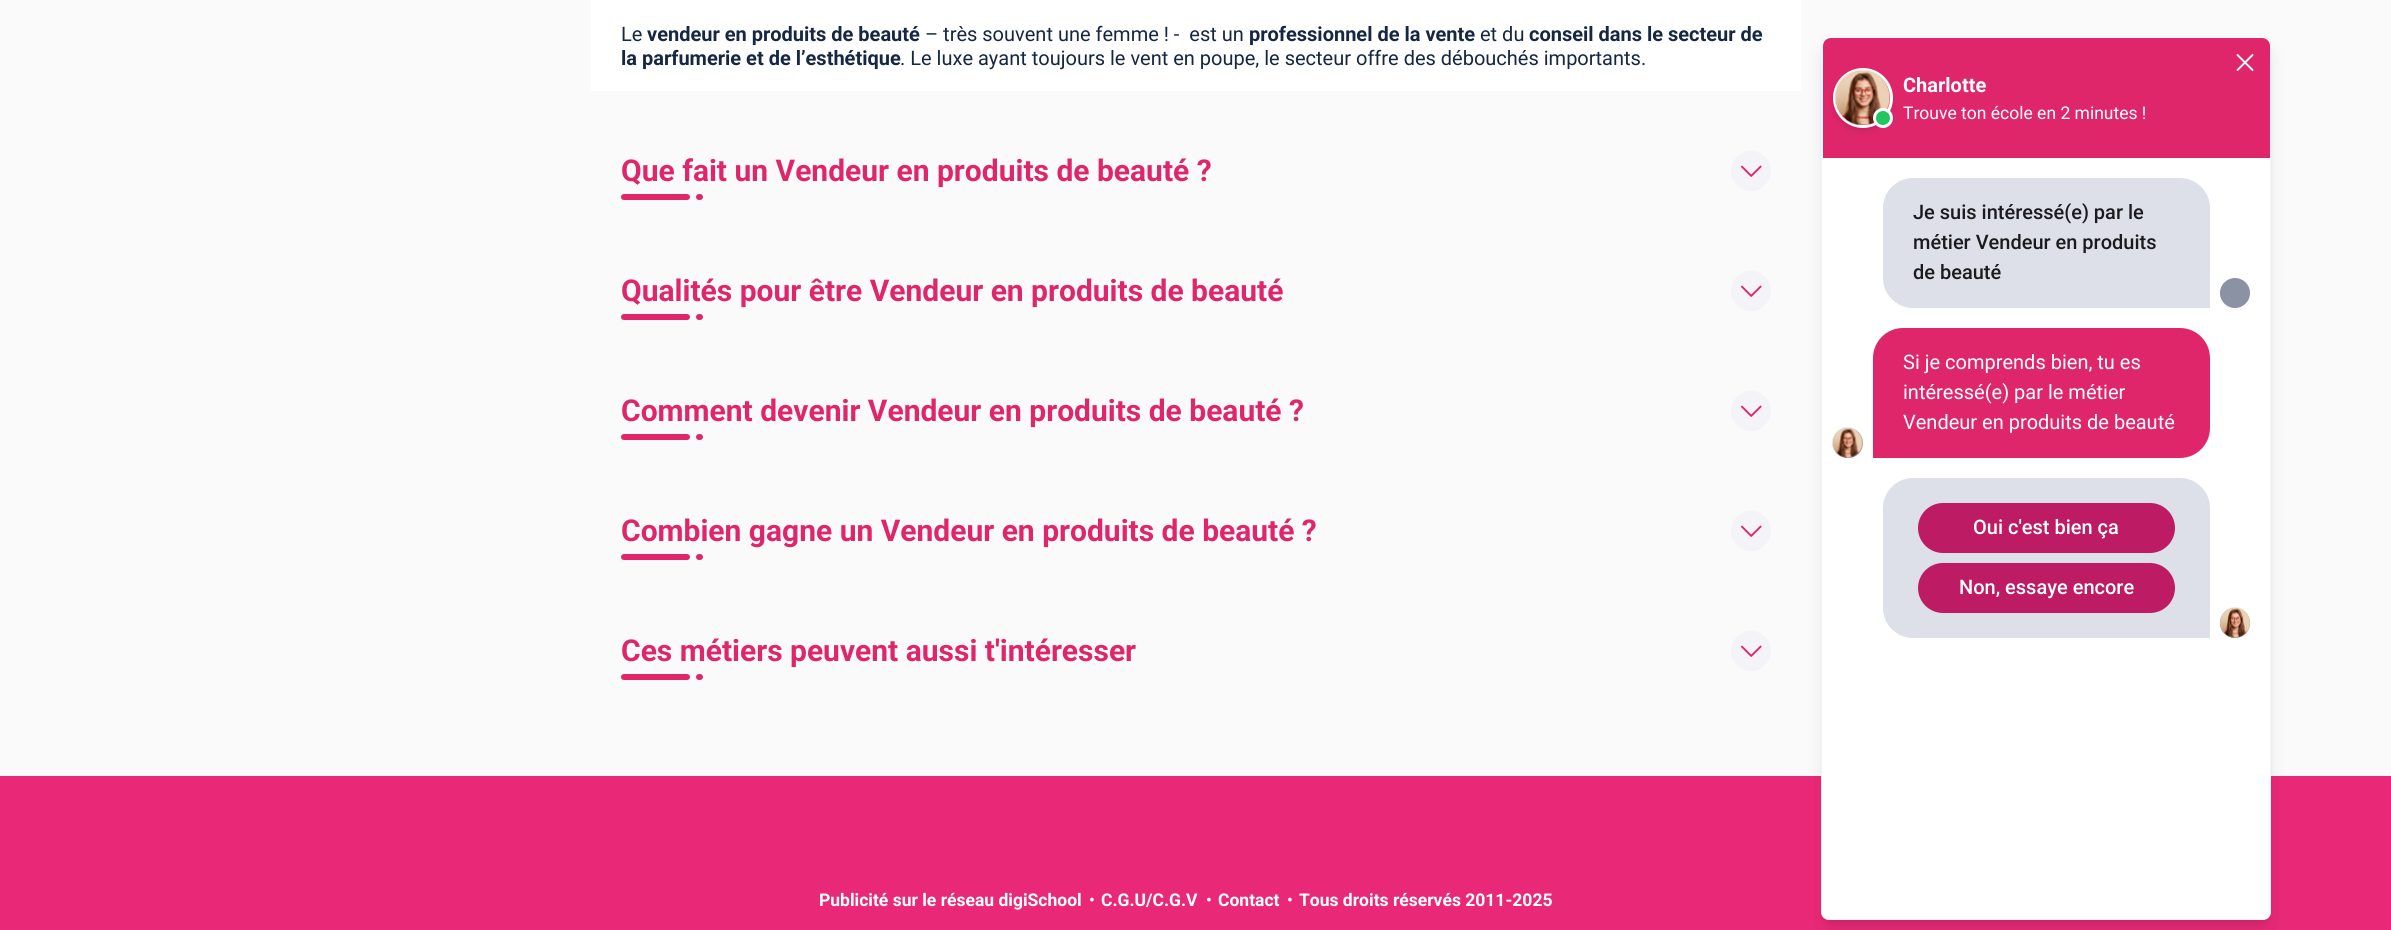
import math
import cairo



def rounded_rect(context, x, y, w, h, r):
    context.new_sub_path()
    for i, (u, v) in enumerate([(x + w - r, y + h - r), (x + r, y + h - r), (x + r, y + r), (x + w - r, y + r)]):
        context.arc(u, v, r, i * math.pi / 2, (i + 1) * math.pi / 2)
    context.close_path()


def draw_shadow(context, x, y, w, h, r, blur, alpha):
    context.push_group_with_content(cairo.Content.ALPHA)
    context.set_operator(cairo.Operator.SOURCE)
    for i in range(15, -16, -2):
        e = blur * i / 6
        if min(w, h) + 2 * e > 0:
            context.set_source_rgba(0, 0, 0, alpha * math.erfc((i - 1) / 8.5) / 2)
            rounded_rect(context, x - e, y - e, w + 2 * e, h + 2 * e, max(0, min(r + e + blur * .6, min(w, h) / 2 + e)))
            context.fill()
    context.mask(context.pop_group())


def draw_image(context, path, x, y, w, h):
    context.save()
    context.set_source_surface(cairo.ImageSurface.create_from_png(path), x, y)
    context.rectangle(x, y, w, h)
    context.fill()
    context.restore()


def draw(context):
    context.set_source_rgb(250 / 255, 250 / 255, 250 / 255)
    context.paint()
    context.set_source_rgb(1, 1, 1)
    context.rectangle(591, 0, 1210, 91)
    context.fill()
    context.set_source_rgb(243 / 255, 243 / 255, 248 / 255)
    context.arc(1751, 171, 20, 0, 2 * math.pi)
    context.fill()
    draw_image(context, "images/1.png", 1741, 165, 21, 12)
    context.set_source_rgb(224 / 255, 38 / 255, 106 / 255)
    rounded_rect(context, 621, 194, 69, 6, 3)
    context.fill()
    rounded_rect(context, 696, 194, 7, 6, 3)
    context.fill()
    context.set_source_rgb(243 / 255, 243 / 255, 248 / 255)
    context.arc(1751, 291, 20, 0, 2 * math.pi)
    context.fill()
    draw_image(context, "images/1.png", 1741, 285, 21, 12)
    context.set_source_rgb(224 / 255, 38 / 255, 106 / 255)
    rounded_rect(context, 621, 314, 69, 6, 3)
    context.fill()
    rounded_rect(context, 696, 314, 7, 6, 3)
    context.fill()
    context.set_source_rgb(243 / 255, 243 / 255, 248 / 255)
    context.arc(1751, 411, 20, 0, 2 * math.pi)
    context.fill()
    draw_image(context, "images/1.png", 1741, 405, 21, 12)
    context.set_source_rgb(224 / 255, 38 / 255, 106 / 255)
    rounded_rect(context, 621, 434, 69, 6, 3)
    context.fill()
    rounded_rect(context, 696, 434, 7, 6, 3)
    context.fill()
    context.set_source_rgb(243 / 255, 243 / 255, 248 / 255)
    context.arc(1751, 531, 20, 0, 2 * math.pi)
    context.fill()
    draw_image(context, "images/1.png", 1741, 525, 21, 12)
    context.set_source_rgb(224 / 255, 38 / 255, 106 / 255)
    rounded_rect(context, 621, 554, 69, 6, 3)
    context.fill()
    rounded_rect(context, 696, 554, 7, 6, 3)
    context.fill()
    context.set_source_rgb(243 / 255, 243 / 255, 248 / 255)
    context.arc(1751, 651, 20, 0, 2 * math.pi)
    context.fill()
    draw_image(context, "images/1.png", 1741, 645, 21, 12)
    context.set_source_rgb(224 / 255, 38 / 255, 106 / 255)
    rounded_rect(context, 621, 674, 69, 6, 3)
    context.fill()
    rounded_rect(context, 696, 674, 7, 6, 3)
    context.fill()
    context.set_source_rgb(233 / 255, 41 / 255, 119 / 255)
    context.rectangle(0, 776, 2391, 154)
    context.fill()
    context.set_source_rgb(0, 0, 0)
    draw_shadow(context, 1826, 46, 440, 874, 2.5, 4, 0.1)
    draw_shadow(context, 1825, 53, 443, 876, 4, 9.5, 0.1)
    context.set_source_rgb(1, 1, 1)
    rounded_rect(context, 1821.5, 36.5, 449, 883, 7.5)
    context.fill_preserve()
    context.set_source_rgb(243 / 255, 243 / 255, 248 / 255)
    context.set_line_width(1)
    context.stroke()
    context.set_source_rgb(1, 1, 1)
    rounded_rect(context, 1823, 38, 447, 881, 6)
    context.fill()
    context.set_source_rgb(224 / 255, 38 / 255, 106 / 255)
    context.new_path()
    context.move_to(1831, 38)
    context.line_to(2262, 38)
    context.curve_to(2266.5, 38, 2270, 41.5, 2270, 46)
    context.line_to(2270, 158)
    context.line_to(1823, 158)
    context.line_to(1823, 46)
    context.curve_to(1823, 41.5, 1826.5, 38, 1831, 38)
    context.close_path()
    context.fill()
    context.set_source_rgb(0, 0, 0)
    draw_shadow(context, 1835, 73, 55, 55, 27.5, 2.5, 0.1)
    draw_shadow(context, 1834, 74, 57, 57, 28.5, 4, 0.1)
    context.arc(1863, 98, 28.5, 0, 2 * math.pi)
    context.set_source_rgb(1, 1, 1)
    context.set_line_width(3)
    context.stroke()
    draw_image(context, "images/2.png", 1834, 69, 57, 57)
    context.set_source_rgb(34 / 255, 197 / 255, 94 / 255)
    context.arc(1883, 118, 8.5, 0, 2 * math.pi)
    context.fill_preserve()
    context.set_source_rgb(1, 1, 1)
    context.stroke()
    context.new_path()
    context.move_to(2237.5, 70)
    context.line_to(2252.5, 55)
    context.move_to(2237.5, 55)
    context.line_to(2252.5, 70)
    context.set_line_width(1.9)
    context.set_line_cap(cairo.LineCap.ROUND)
    context.set_line_join(cairo.LineJoin.ROUND)
    context.stroke()
    context.set_source_rgb(222 / 255, 224 / 255, 233 / 255)
    context.new_path()
    context.move_to(1913, 178)
    context.line_to(2180, 178)
    context.curve_to(2196.5, 178, 2210, 191.5, 2210, 208)
    context.line_to(2210, 308)
    context.line_to(1913, 308)
    context.curve_to(1896.5, 308, 1883, 294.5, 1883, 278)
    context.line_to(1883, 208)
    context.curve_to(1883, 191.5, 1896.5, 178, 1913, 178)
    context.close_path()
    context.fill()
    context.set_source_rgb(0, 0, 0)
    draw_shadow(context, 2220, 279, 30, 30, 15, 1, 0.05)
    context.set_source_rgb(139 / 255, 146 / 255, 163 / 255)
    context.arc(2235, 293, 15, 0, 2 * math.pi)
    context.fill()
    context.set_source_rgb(224 / 255, 38 / 255, 106 / 255)
    context.new_path()
    context.move_to(1903, 328)
    context.line_to(2180, 328)
    context.curve_to(2196.5, 328, 2210, 341.5, 2210, 358)
    context.line_to(2210, 428)
    context.curve_to(2210, 444.5, 2196.5, 458, 2180, 458)
    context.line_to(1873, 458)
    context.line_to(1873, 358)
    context.curve_to(1873, 341.5, 1886.5, 328, 1903, 328)
    context.close_path()
    context.fill()
    context.set_source_rgb(0, 0, 0)
    draw_shadow(context, 1833, 429, 30, 30, 15, 1, 0.05)
    context.set_source_rgb(139 / 255, 146 / 255, 163 / 255)
    context.arc(1848, 443, 15, 0, 2 * math.pi)
    context.fill()
    draw_image(context, "images/3.png", 1832, 427, 31, 31)
    context.set_source_rgb(222 / 255, 224 / 255, 233 / 255)
    context.new_path()
    context.move_to(1913, 478)
    context.line_to(2180, 478)
    context.curve_to(2196.5, 478, 2210, 491.5, 2210, 508)
    context.line_to(2210, 638)
    context.line_to(1913, 638)
    context.curve_to(1896.5, 638, 1883, 624.5, 1883, 608)
    context.line_to(1883, 508)
    context.curve_to(1883, 491.5, 1896.5, 478, 1913, 478)
    context.close_path()
    context.fill()
    context.set_source_rgb(190 / 255, 27 / 255, 101 / 255)
    rounded_rect(context, 1918, 503, 257, 50, 25)
    context.fill()
    rounded_rect(context, 1918, 563, 257, 50, 25)
    context.fill()
    context.set_source_rgb(0, 0, 0)
    draw_shadow(context, 2220, 609, 30, 30, 15, 1, 0.05)
    context.set_source_rgb(139 / 255, 146 / 255, 163 / 255)
    context.arc(2235, 623, 15, 0, 2 * math.pi)
    context.fill()
    draw_image(context, "images/4.png", 2220, 607, 30, 31)
    context.select_font_face("Roboto")
    context.set_font_size(20)
    context.set_source_rgb(21 / 255, 39 / 255, 66 / 255)
    context.move_to(621, 41)
    context.show_text("Le")
    context.select_font_face("Roboto", cairo.FontSlant.NORMAL, cairo.FontWeight.BOLD)
    context.move_to(647, 41)
    context.show_text("vendeur en produits de beauté")
    context.select_font_face("Roboto")
    context.move_to(925, 41)
    context.show_text("– très souvent une femme ! -  est un")
    context.select_font_face("Roboto", cairo.FontSlant.NORMAL, cairo.FontWeight.BOLD)
    context.move_to(1249, 41)
    context.show_text("professionnel de la vente")
    context.select_font_face("Roboto")
    context.move_to(1480, 41)
    context.show_text("et du")
    context.select_font_face("Roboto", cairo.FontSlant.NORMAL, cairo.FontWeight.BOLD)
    context.move_to(1529, 41)
    context.show_text("conseil dans le secteur de")
    context.move_to(621, 65)
    context.show_text("la parfumerie et de l’esthétique")
    context.select_font_face("Roboto")
    context.move_to(900, 65)
    context.show_text(". Le luxe ayant toujours le vent en poupe, le secteur offre des débouchés importants.")
    context.select_font_face("Roboto", cairo.FontSlant.NORMAL, cairo.FontWeight.BOLD)
    context.set_font_size(30)
    context.set_source_rgb(224 / 255, 38 / 255, 106 / 255)
    context.move_to(621, 181)
    context.show_text("Que fait un Vendeur en produits de beauté ?")
    context.move_to(621, 301)
    context.show_text("Qualités pour être Vendeur en produits de beauté")
    context.move_to(621, 421)
    context.show_text("Comment devenir Vendeur en produits de beauté ?")
    context.move_to(621, 541)
    context.show_text("Combien gagne un Vendeur en produits de beauté ?")
    context.move_to(621, 661)
    context.show_text("Ces métiers peuvent aussi t'intéresser")
    context.set_font_size(20)
    context.set_source_rgb(1, 1, 1)
    context.move_to(1903, 92)
    context.show_text("Charlotte")
    context.select_font_face("Roboto")
    context.set_font_size(17.5)
    context.move_to(1903, 119)
    context.show_text("Trouve ton école en 2 minutes !")
    context.select_font_face("Roboto Medium")
    context.set_font_size(20)
    context.set_source_rgb(27 / 255, 27 / 255, 29 / 255)
    context.move_to(1913, 219)
    context.show_text("Je suis intéressé(e) par le")
    context.move_to(1913, 249)
    context.show_text("métier Vendeur en produits")
    context.move_to(1913, 279)
    context.show_text("de beauté")
    context.select_font_face("Roboto")
    context.set_source_rgb(1, 1, 1)
    context.move_to(1903, 369)
    context.show_text("Si je comprends bien, tu es")
    context.move_to(1903, 399)
    context.show_text("intéressé(e) par le métier")
    context.move_to(1903, 429)
    context.show_text("Vendeur en produits de beauté")
    context.select_font_face("Roboto Medium")
    context.move_to(1973, 534)
    context.show_text("Oui c'est bien ça")
    context.move_to(1959, 594)
    context.show_text("Non, essaye encore")
    context.select_font_face("Roboto", cairo.FontSlant.NORMAL, cairo.FontWeight.BOLD)
    context.set_font_size(17.5)
    context.move_to(819, 906)
    context.show_text("Publicité sur le réseau digiSchool")
    context.select_font_face("Roboto")
    context.move_to(1089, 906)
    context.show_text("•")
    context.select_font_face("Roboto", cairo.FontSlant.NORMAL, cairo.FontWeight.BOLD)
    context.move_to(1101, 906)
    context.show_text("C.G.U/C.G.V")
    context.select_font_face("Roboto")
    context.move_to(1206, 906)
    context.show_text("•")
    context.select_font_face("Roboto", cairo.FontSlant.NORMAL, cairo.FontWeight.BOLD)
    context.move_to(1218, 906)
    context.show_text("Contact")
    context.select_font_face("Roboto")
    context.move_to(1287, 906)
    context.show_text("•")
    context.select_font_face("Roboto", cairo.FontSlant.NORMAL, cairo.FontWeight.BOLD)
    context.move_to(1299, 906)
    context.show_text("Tous droits réservés 2011-2025")


surface = cairo.ImageSurface(cairo.Format.RGB24, 2391, 930)
context = cairo.Context(surface)
options = cairo.FontOptions()
options.set_hint_metrics(cairo.HintMetrics.OFF)
options.set_hint_style(cairo.HintStyle.NONE)
context.set_font_options(options)
context.set_miter_limit(4)
draw(context)
surface.write_to_png("out.png")
